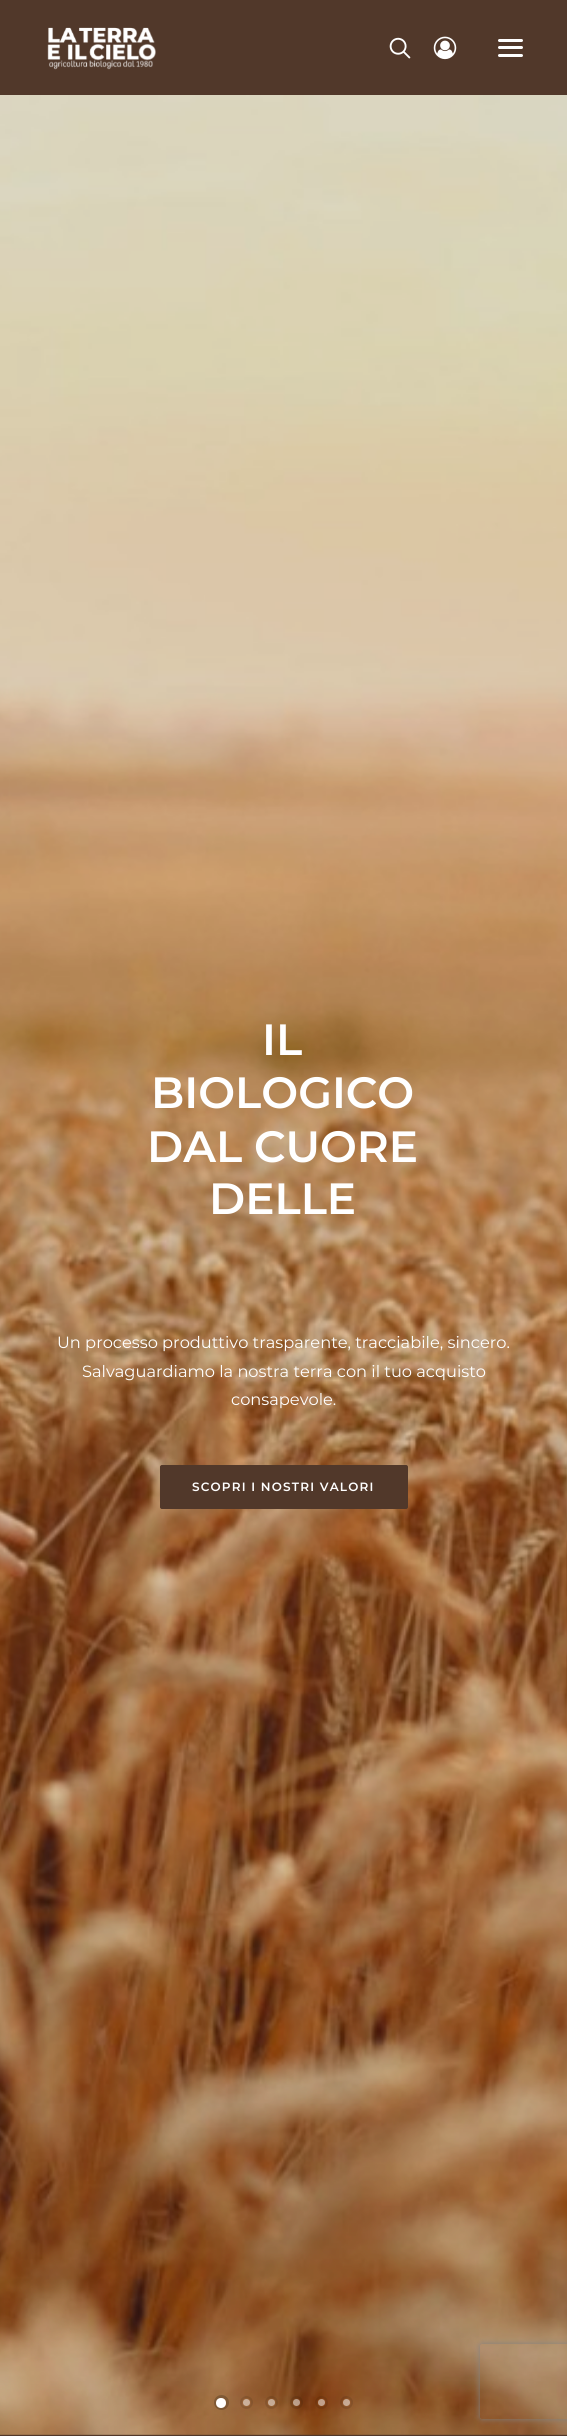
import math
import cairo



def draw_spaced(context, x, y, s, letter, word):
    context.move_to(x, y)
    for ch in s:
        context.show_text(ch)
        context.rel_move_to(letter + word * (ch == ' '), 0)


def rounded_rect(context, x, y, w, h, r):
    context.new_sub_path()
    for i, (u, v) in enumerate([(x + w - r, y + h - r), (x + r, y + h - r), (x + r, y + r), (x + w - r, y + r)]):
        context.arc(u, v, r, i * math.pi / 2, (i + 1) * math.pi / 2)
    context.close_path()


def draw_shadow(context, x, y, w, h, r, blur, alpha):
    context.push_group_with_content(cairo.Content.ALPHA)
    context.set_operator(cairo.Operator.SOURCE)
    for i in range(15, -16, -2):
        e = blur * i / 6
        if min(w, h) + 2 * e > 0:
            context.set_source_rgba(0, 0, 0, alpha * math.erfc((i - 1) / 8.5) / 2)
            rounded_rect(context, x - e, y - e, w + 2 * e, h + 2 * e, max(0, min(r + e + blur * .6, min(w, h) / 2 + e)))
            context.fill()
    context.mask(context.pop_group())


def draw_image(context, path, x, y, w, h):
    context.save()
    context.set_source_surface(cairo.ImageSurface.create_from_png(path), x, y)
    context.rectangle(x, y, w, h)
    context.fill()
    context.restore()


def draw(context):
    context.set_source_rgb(81 / 255, 56 / 255, 42 / 255)
    context.paint()
    draw_image(context, "images/1.png", 47, 27, 109, 43)
    draw_image(context, "images/2.png", 389, 37, 22, 22)
    draw_image(context, "images/3.png", 433, 36, 24, 24)
    context.set_source_rgb(1, 1, 1)
    rounded_rect(context, 498, 46, 25, 3, 1.5)
    context.fill()
    rounded_rect(context, 498, 39, 25, 3, 1.5)
    context.fill()
    rounded_rect(context, 498, 54, 25, 3, 1.5)
    context.fill()
    draw_image(context, "images/4.png", 0, 95, 567, 2340)
    context.set_source_rgb(81 / 255, 56 / 255, 42 / 255)
    rounded_rect(context, 160.5, 1465.5, 247, 43, 1.5)
    context.fill_preserve()
    context.set_line_width(1)
    context.stroke()
    context.arc(221.5, 2402.5, 6, 0, 2 * math.pi)
    context.set_source_rgba(0, 0, 0, 0.2)
    context.set_line_width(3)
    context.stroke()
    context.set_source_rgb(1, 1, 1)
    context.arc(221, 2403, 5, 0, 2 * math.pi)
    context.fill()
    context.arc(246.5, 2402.5, 5.5, 0, 2 * math.pi)
    context.set_source_rgba(0, 0, 0, 0.1)
    context.set_line_width(2)
    context.stroke()
    context.set_source_rgba(1, 1, 1, 0.5)
    context.arc(246.5, 2402.5, 3.5, 0, 2 * math.pi)
    context.fill()
    context.arc(271.5, 2402.5, 5.5, 0, 2 * math.pi)
    context.set_source_rgba(0, 0, 0, 0.1)
    context.stroke()
    context.set_source_rgba(1, 1, 1, 0.5)
    context.arc(271.5, 2402.5, 3.5, 0, 2 * math.pi)
    context.fill()
    context.arc(296.5, 2402.5, 5.5, 0, 2 * math.pi)
    context.set_source_rgba(0, 0, 0, 0.1)
    context.stroke()
    context.set_source_rgba(1, 1, 1, 0.5)
    context.arc(296.5, 2402.5, 3.5, 0, 2 * math.pi)
    context.fill()
    context.arc(321.5, 2402.5, 5.5, 0, 2 * math.pi)
    context.set_source_rgba(0, 0, 0, 0.1)
    context.stroke()
    context.set_source_rgba(1, 1, 1, 0.5)
    context.arc(321.5, 2402.5, 3.5, 0, 2 * math.pi)
    context.fill()
    context.arc(346.5, 2402.5, 5.5, 0, 2 * math.pi)
    context.set_source_rgba(0, 0, 0, 0.1)
    context.stroke()
    context.set_source_rgba(1, 1, 1, 0.5)
    context.arc(346.5, 2402.5, 3.5, 0, 2 * math.pi)
    context.fill()
    context.save()
    context.set_fill_rule(cairo.FillRule.EVEN_ODD)
    context.new_path()
    context.move_to(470, 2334)
    context.line_to(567, 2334)
    context.line_to(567, 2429)
    context.line_to(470, 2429)
    context.close_path()
    context.move_to(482.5, 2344)
    context.line_to(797.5, 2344)
    context.curve_to(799, 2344, 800, 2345, 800, 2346.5)
    context.line_to(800, 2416.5)
    context.curve_to(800, 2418, 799, 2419, 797.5, 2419)
    context.line_to(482.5, 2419)
    context.curve_to(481, 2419, 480, 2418, 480, 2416.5)
    context.line_to(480, 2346.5)
    context.curve_to(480, 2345, 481, 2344, 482.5, 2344)
    context.close_path()
    context.clip()
    context.set_source_rgb(128 / 255, 128 / 255, 128 / 255)
    draw_shadow(context, 480, 2344, 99, 75, 2.5, 3, 1)
    context.restore()
    context.select_font_face("Montserrat SemiBold")
    context.set_font_size(43.75)
    context.set_source_rgb(1, 1, 1)
    context.move_to(262, 1055)
    context.show_text("IL")
    context.move_to(151, 1108)
    context.show_text("BIOLOGICO")
    context.move_to(147, 1162)
    context.show_text("DAL")
    context.move_to(254, 1162)
    context.show_text("CUORE")
    context.move_to(209, 1214)
    context.show_text("DELLE")
    context.select_font_face("Montserrat")
    context.set_font_size(16.25)
    context.move_to(57, 1348)
    context.show_text("Un processo produttivo trasparente, tracciabile, sincero.")
    context.move_to(82, 1377)
    context.show_text("Salvaguardiamo la nostra terra con il tuo acquisto")
    context.move_to(231, 1405)
    context.show_text("consapevole.")
    context.select_font_face("Montserrat SemiBold")
    context.set_font_size(12)
    draw_spaced(context, 192, 1491, "SCOPRI I NOSTRI VALORI", 1.2, 0)


surface = cairo.ImageSurface(cairo.Format.RGB24, 567, 2436)
context = cairo.Context(surface)
options = cairo.FontOptions()
options.set_hint_metrics(cairo.HintMetrics.OFF)
options.set_hint_style(cairo.HintStyle.NONE)
context.set_font_options(options)
context.set_miter_limit(4)
draw(context)
surface.write_to_png("out.png")
